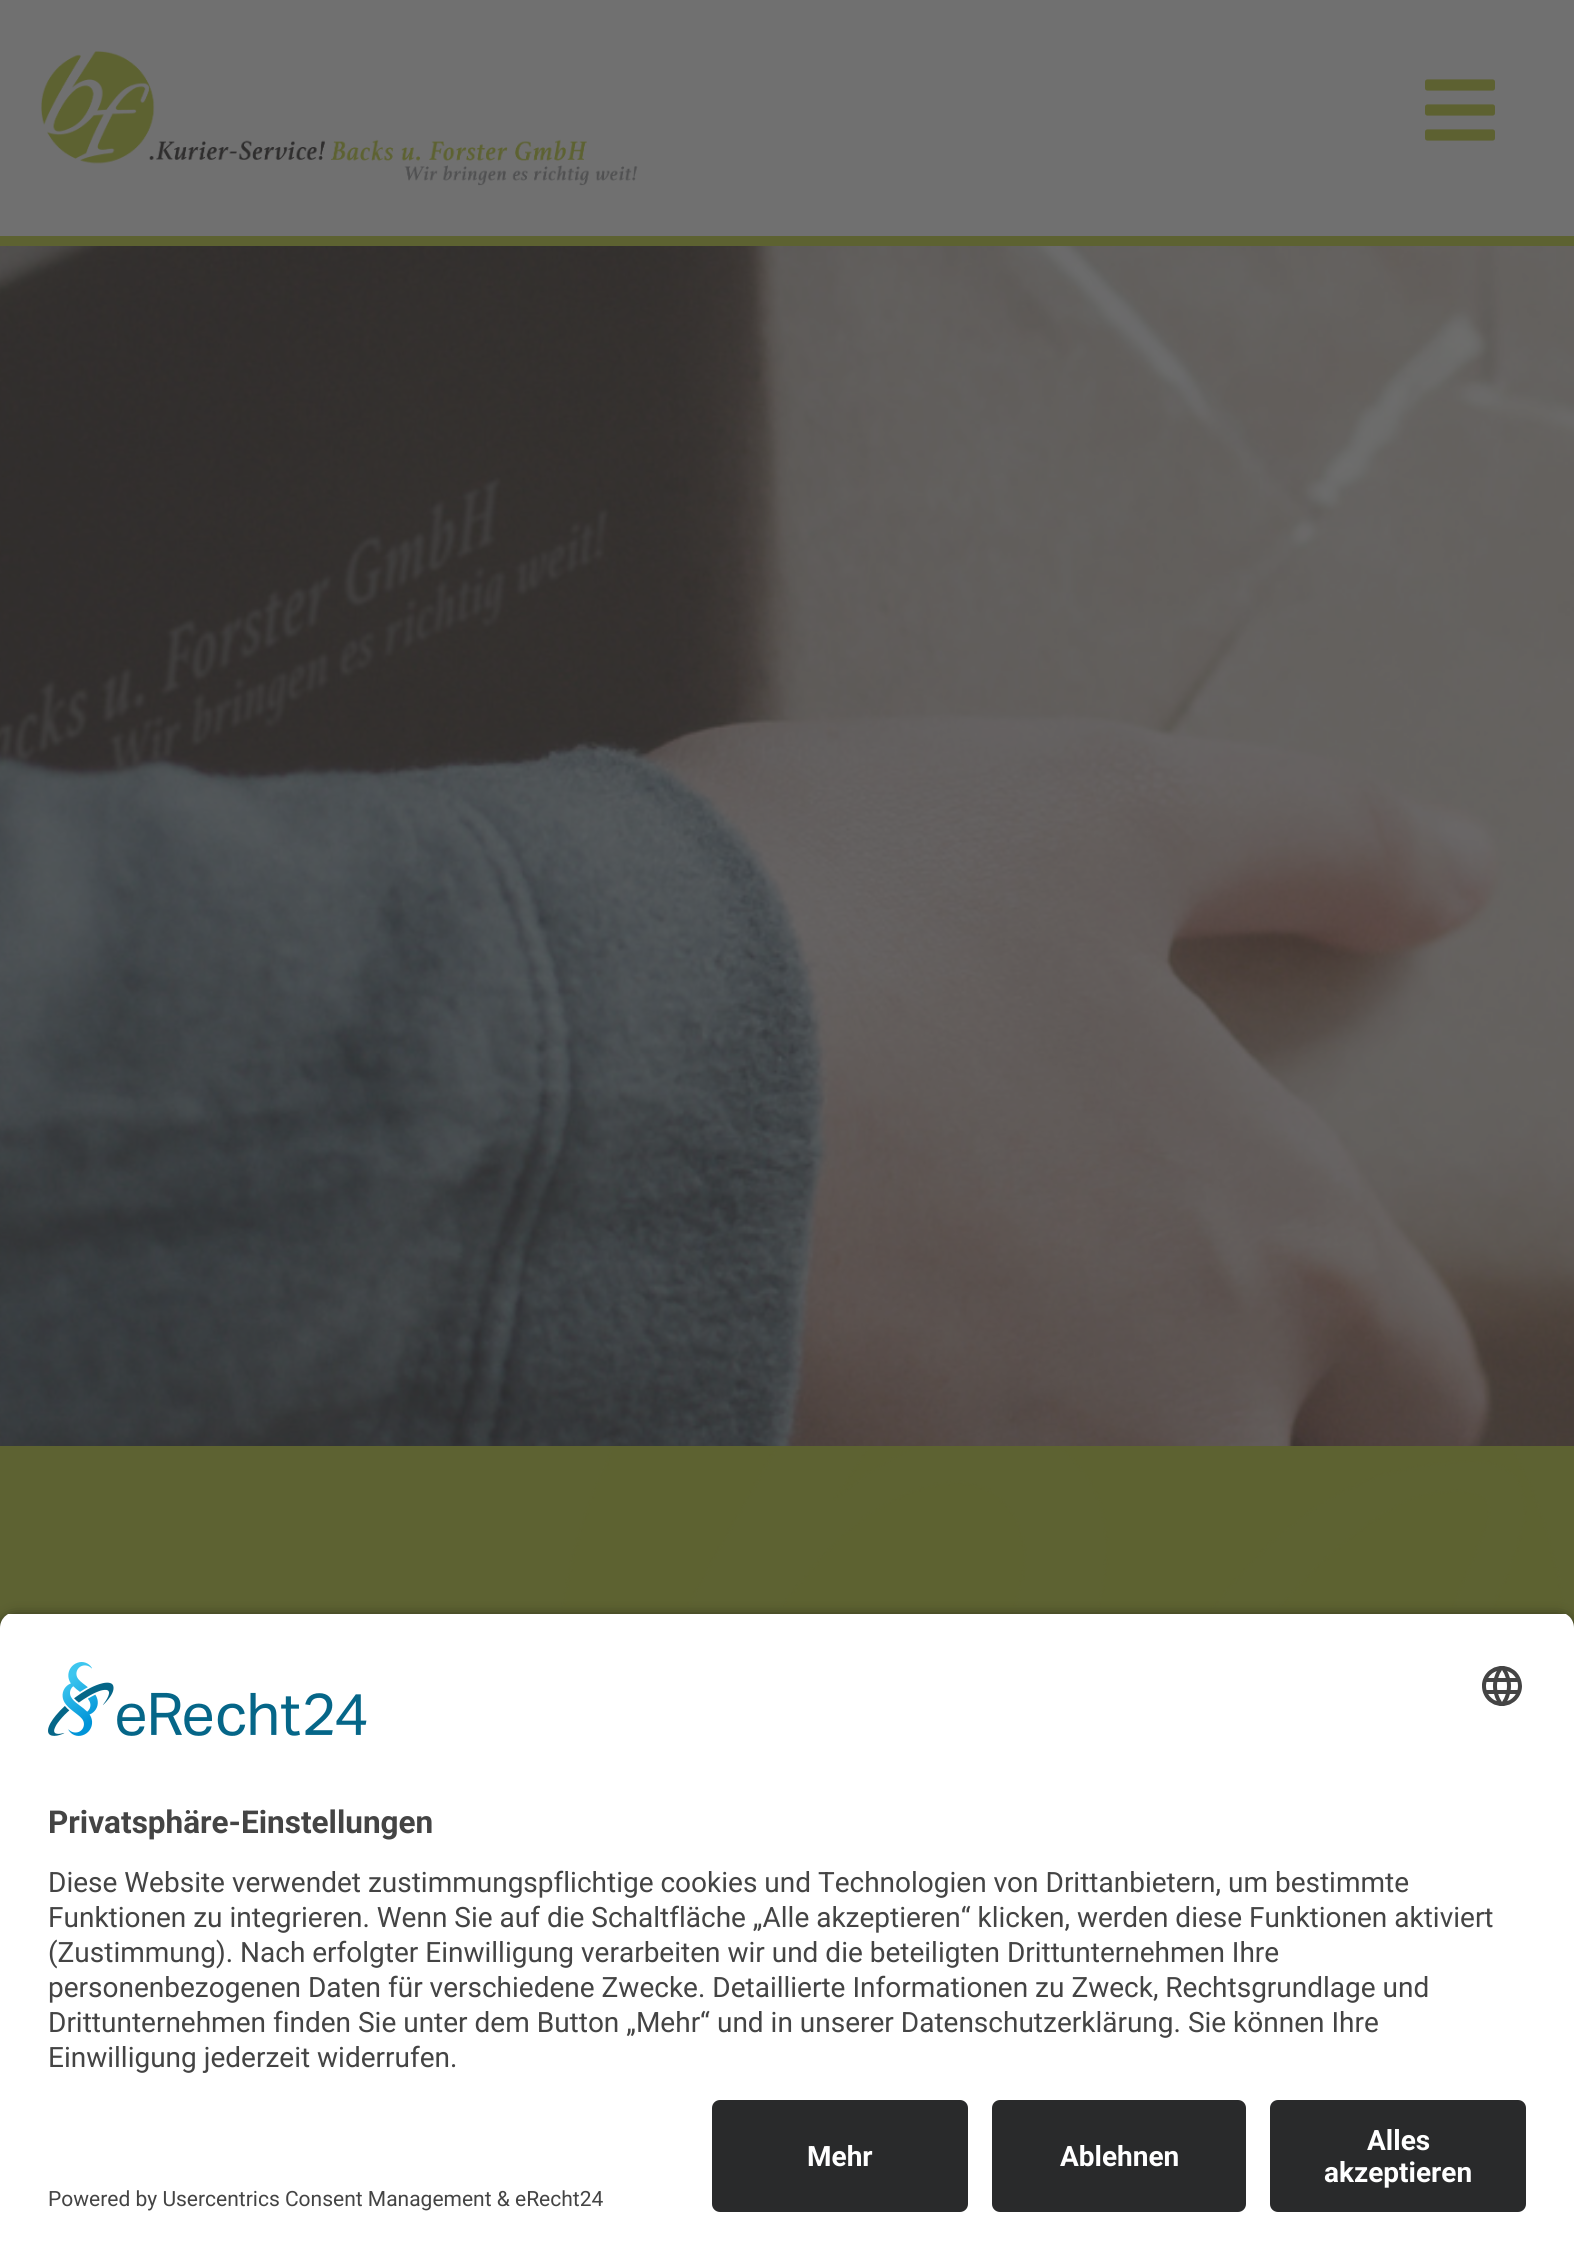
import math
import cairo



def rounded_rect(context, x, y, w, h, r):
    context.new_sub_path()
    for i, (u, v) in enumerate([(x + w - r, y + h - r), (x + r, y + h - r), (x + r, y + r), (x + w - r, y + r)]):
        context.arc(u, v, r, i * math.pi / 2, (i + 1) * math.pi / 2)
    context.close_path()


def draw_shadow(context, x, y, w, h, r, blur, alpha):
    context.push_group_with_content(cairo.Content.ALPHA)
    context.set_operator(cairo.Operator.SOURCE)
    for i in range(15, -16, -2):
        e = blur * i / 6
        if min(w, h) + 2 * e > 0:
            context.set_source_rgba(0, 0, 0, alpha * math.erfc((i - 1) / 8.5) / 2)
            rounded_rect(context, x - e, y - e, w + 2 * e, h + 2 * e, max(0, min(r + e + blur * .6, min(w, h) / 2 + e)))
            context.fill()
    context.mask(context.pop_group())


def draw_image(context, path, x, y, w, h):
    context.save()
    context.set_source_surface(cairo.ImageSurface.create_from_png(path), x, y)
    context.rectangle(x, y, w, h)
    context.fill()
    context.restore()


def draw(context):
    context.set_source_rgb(112 / 255, 112 / 255, 112 / 255)
    context.paint()
    context.set_source_rgb(93 / 255, 98 / 255, 49 / 255)
    context.rectangle(0, 236, 1574, 10)
    context.fill()
    draw_image(context, "images/1.png", 41, 51, 597, 135)
    draw_image(context, "images/2.png", 1425, 79, 70, 62)
    draw_image(context, "images/3.png", 0, 246, 1574, 1200)
    context.set_source_rgb(93 / 255, 98 / 255, 50 / 255)
    context.rectangle(0, 1450, 1574, 178)
    context.fill()
    context.set_source_rgb(93 / 255, 98 / 255, 49 / 255)
    context.rectangle(0, 1446, 1574, 4)
    context.fill()
    draw_image(context, "images/4.png", 561, 1450, 1006, 165)
    context.set_source_rgb(0, 0, 0)
    draw_shadow(context, 0, 1618, 1574, 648, 16, 7, 0.8)
    context.save()
    context.new_path()
    context.move_to(16, 1612)
    context.line_to(1558, 1612)
    context.curve_to(1567, 1612, 1574, 1619, 1574, 1628)
    context.line_to(1574, 2084)
    context.line_to(0, 2084)
    context.line_to(0, 1628)
    context.curve_to(0, 1619, 7, 1612, 16, 1612)
    context.close_path()
    context.clip()
    context.set_source_rgb(1, 1, 1)
    context.rectangle(0, 1614, 1574, 470)
    context.fill()
    context.restore()
    draw_image(context, "images/5.png", 48, 1662, 319, 74)
    draw_image(context, "images/6.png", 1482, 1666, 40, 40)
    context.set_source_rgb(1, 1, 1)
    context.rectangle(0, 2084, 1574, 175)
    context.fill()
    context.set_source_rgb(41 / 255, 42 / 255, 43 / 255)
    rounded_rect(context, 712, 2100, 256, 112, 8)
    context.fill()
    rounded_rect(context, 992, 2100, 254, 112, 8)
    context.fill()
    rounded_rect(context, 1270, 2100, 256, 112, 8)
    context.fill()
    context.select_font_face("Roboto", cairo.FontSlant.NORMAL, cairo.FontWeight.BOLD)
    context.set_font_size(31.5)
    context.set_source_rgb(68 / 255, 68 / 255, 68 / 255)
    context.move_to(48, 1833)
    context.show_text("Privatsphäre-Einstellungen")
    context.select_font_face("Roboto")
    context.set_font_size(28)
    context.move_to(48, 1892)
    context.show_text("Diese Website verwendet zustimmungspflichtige cookies und Technologien von Drittanbietern, um bestimmte")
    context.move_to(48, 1927)
    context.show_text("Funktionen zu integrieren. Wenn Sie auf die Schaltfläche „Alle akzeptieren“ klicken, werden diese Funktionen aktiviert")
    context.move_to(48, 1962)
    context.show_text("(Zustimmung). Nach erfolgter Einwilligung verarbeiten wir und die beteiligten Drittunternehmen Ihre")
    context.move_to(48, 1997)
    context.show_text("personenbezogenen Daten für verschiedene Zwecke. Detaillierte Informationen zu Zweck, Rechtsgrundlage und")
    context.move_to(48, 2032)
    context.show_text("Drittunternehmen finden Sie unter dem Button „Mehr“ und in unserer Datenschutzerklärung. Sie können Ihre")
    context.move_to(48, 2067)
    context.show_text("Einwilligung jederzeit widerrufen.")
    context.select_font_face("Roboto", cairo.FontSlant.NORMAL, cairo.FontWeight.BOLD)
    context.set_source_rgb(1, 1, 1)
    context.move_to(807, 2166)
    context.show_text("Mehr")
    context.move_to(1060, 2166)
    context.show_text("Ablehnen")
    context.move_to(1367, 2150)
    context.show_text("Alles")
    context.move_to(1324, 2182)
    context.show_text("akzeptieren")
    context.select_font_face("Roboto")
    context.set_font_size(21)
    context.set_source_rgb(68 / 255, 68 / 255, 68 / 255)
    context.move_to(48, 2206)
    context.show_text("Powered by Usercentrics Consent Management & eRecht24")


surface = cairo.ImageSurface(cairo.Format.RGB24, 1574, 2259)
context = cairo.Context(surface)
options = cairo.FontOptions()
options.set_hint_metrics(cairo.HintMetrics.OFF)
options.set_hint_style(cairo.HintStyle.NONE)
context.set_font_options(options)
context.set_miter_limit(4)
draw(context)
surface.write_to_png("out.png")
